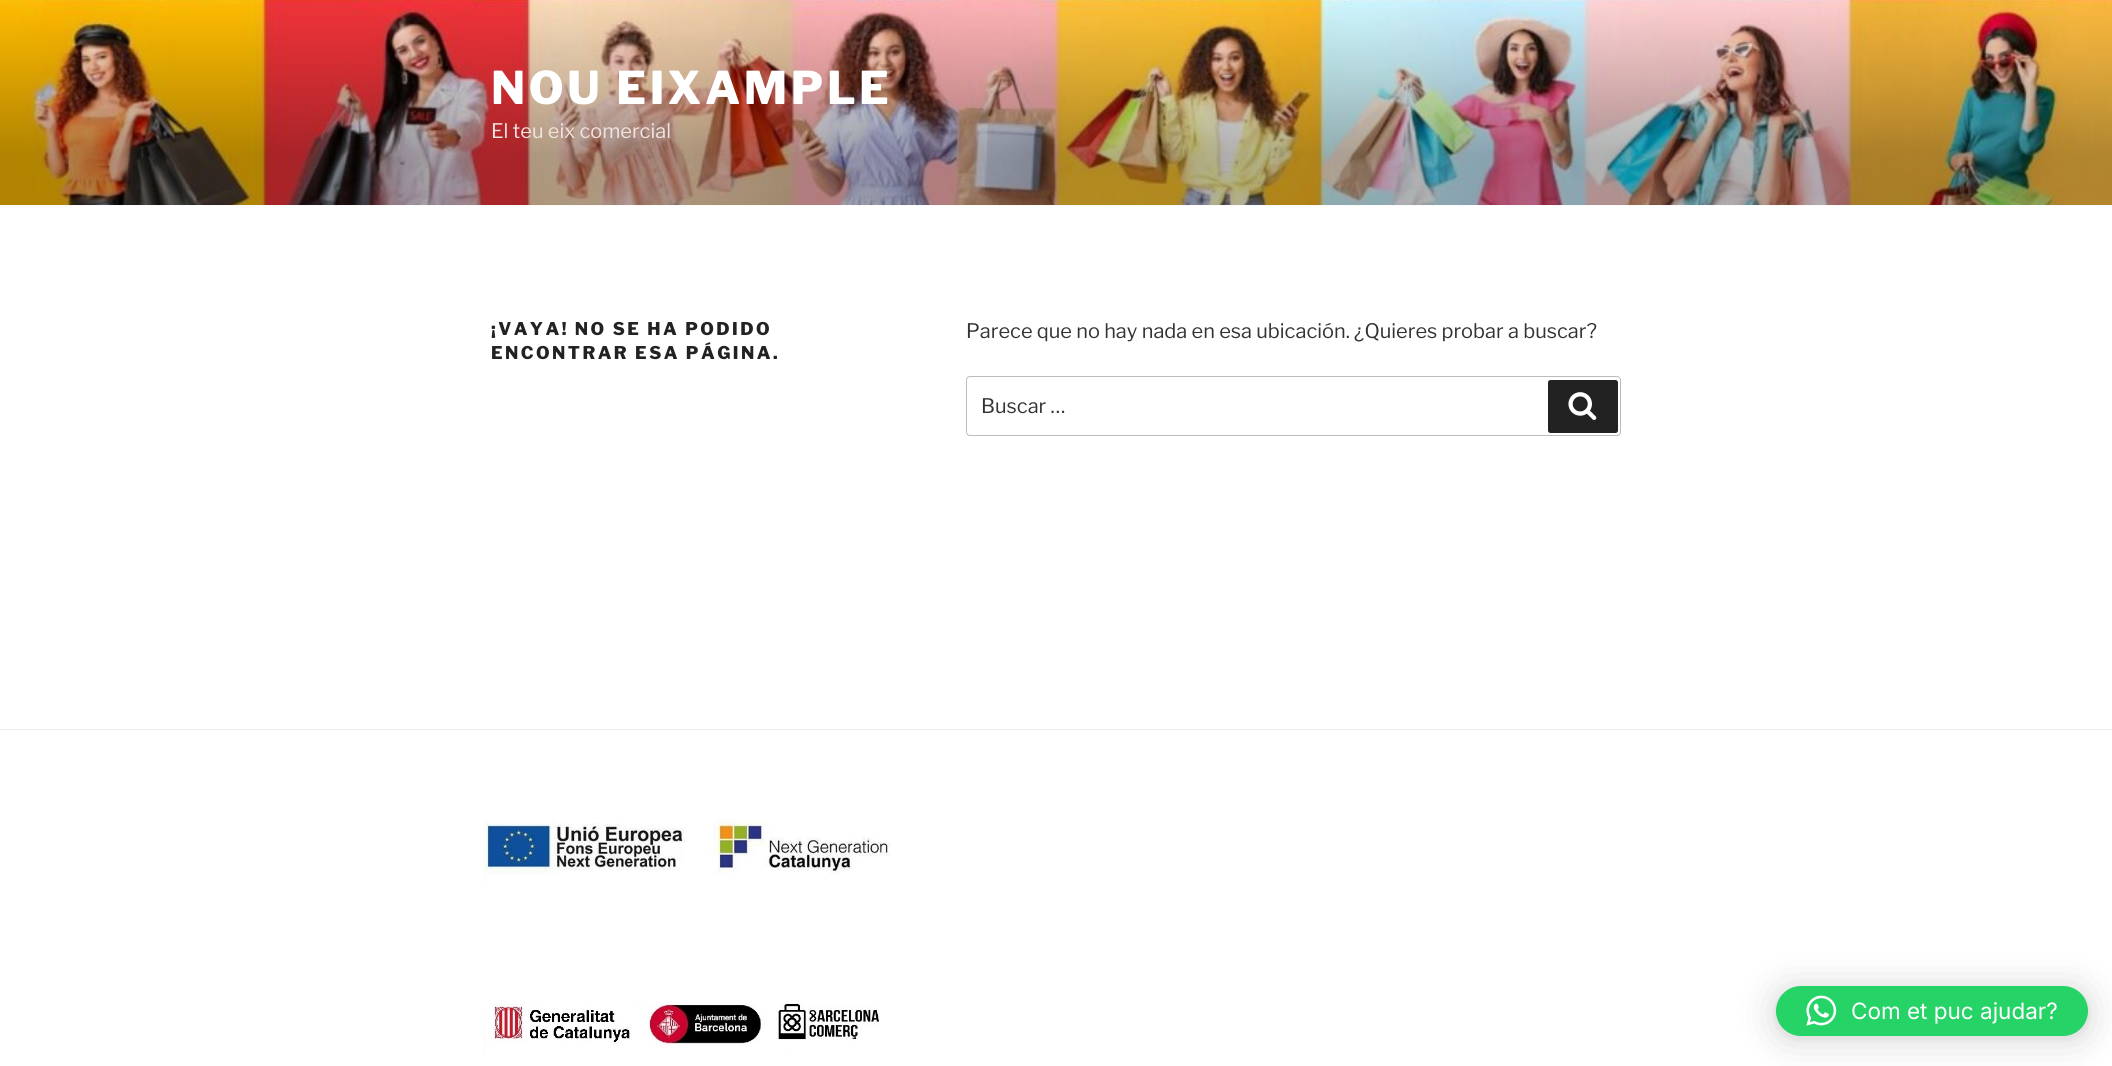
import math
import cairo



def draw_spaced(context, x, y, s, letter, word):
    context.move_to(x, y)
    for ch in s:
        context.show_text(ch)
        context.rel_move_to(letter + word * (ch == ' '), 0)


def rounded_rect(context, x, y, w, h, r):
    context.new_sub_path()
    for i, (u, v) in enumerate([(x + w - r, y + h - r), (x + r, y + h - r), (x + r, y + r), (x + w - r, y + r)]):
        context.arc(u, v, r, i * math.pi / 2, (i + 1) * math.pi / 2)
    context.close_path()


def draw_shadow(context, x, y, w, h, r, blur, alpha):
    context.push_group_with_content(cairo.Content.ALPHA)
    context.set_operator(cairo.Operator.SOURCE)
    for i in range(15, -16, -2):
        e = blur * i / 6
        if min(w, h) + 2 * e > 0:
            context.set_source_rgba(0, 0, 0, alpha * math.erfc((i - 1) / 8.5) / 2)
            rounded_rect(context, x - e, y - e, w + 2 * e, h + 2 * e, max(0, min(r + e + blur * .6, min(w, h) / 2 + e)))
            context.fill()
    context.mask(context.pop_group())


def draw_image(context, path, x, y, w, h):
    context.save()
    context.set_source_surface(cairo.ImageSurface.create_from_png(path), x, y)
    context.rectangle(x, y, w, h)
    context.fill()
    context.restore()


def draw(context):
    context.set_source_rgb(1, 1, 1)
    context.paint()
    context.set_source_rgb(250 / 255, 250 / 255, 250 / 255)
    context.rectangle(0, 205, 2112, 1)
    context.fill()
    draw_image(context, "images/1.png", 0, 0, 2112, 205)
    rounded_rect(context, 966.5, 376.5, 654, 59, 3.5)
    context.set_source_rgb(187 / 255, 187 / 255, 187 / 255)
    context.set_line_width(1)
    context.stroke()
    context.set_source_rgb(34 / 255, 34 / 255, 34 / 255)
    rounded_rect(context, 1548, 380, 70, 53, 2.5)
    context.fill()
    draw_image(context, "images/2.png", 1568, 392, 29, 28)
    context.set_source_rgb(238 / 255, 238 / 255, 238 / 255)
    context.rectangle(0, 729, 2112, 1)
    context.fill()
    draw_image(context, "images/3.png", 483, 819, 408, 64)
    draw_image(context, "images/4.png", 484, 1003, 396, 55)
    context.set_source_rgb(0, 0, 0)
    draw_shadow(context, 1776, 989, 312, 50, 25, 20, 0.16)
    draw_shadow(context, 1776, 988, 312, 50, 25, 4, 0.06)
    context.set_source_rgb(37 / 255, 211 / 255, 102 / 255)
    rounded_rect(context, 1776, 986, 312, 50, 25)
    context.fill()
    draw_image(context, "images/5.png", 1806, 995, 31, 31)
    context.select_font_face("Libre Franklin Thin")
    context.set_font_size(45)
    context.set_source_rgb(1, 1, 1)
    draw_spaced(context, 491, 104, "NOU EIXAMPLE", 3.6, 0)
    context.select_font_face("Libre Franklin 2 Thin")
    context.set_font_size(20)
    context.set_source_rgb(239 / 255, 228 / 255, 226 / 255)
    context.move_to(491, 138)
    context.show_text("El teu eix comercial")
    context.select_font_face("Libre Franklin Thin")
    context.set_font_size(17.5)
    context.set_source_rgb(34 / 255, 34 / 255, 34 / 255)
    draw_spaced(context, 491, 335, "¡VAYA! NO SE HA PODIDO", 2.45, 0)
    draw_spaced(context, 491, 359, "ENCONTRAR ESA PÁGINA.", 2.45, 0)
    context.select_font_face("Libre Franklin 2 Thin")
    context.set_font_size(20)
    context.set_source_rgb(51 / 255, 51 / 255, 51 / 255)
    context.move_to(966, 338)
    context.show_text("Parece que no hay nada en esa ubicación. ¿Quieres probar a buscar?")
    context.move_to(981, 413)
    context.show_text("Buscar …")
    context.select_font_face("Inter")
    context.set_font_size(22.5)
    context.set_source_rgb(1, 1, 1)
    context.move_to(1851, 1019)
    context.show_text("Com et puc ajudar?")


surface = cairo.ImageSurface(cairo.Format.RGB24, 2112, 1066)
context = cairo.Context(surface)
options = cairo.FontOptions()
options.set_hint_metrics(cairo.HintMetrics.OFF)
options.set_hint_style(cairo.HintStyle.NONE)
context.set_font_options(options)
context.set_miter_limit(4)
draw(context)
surface.write_to_png("out.png")
